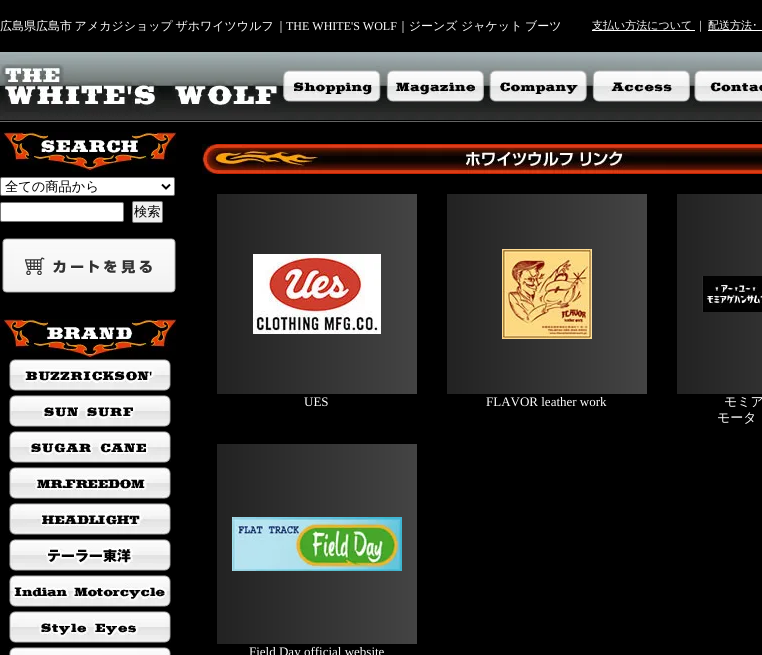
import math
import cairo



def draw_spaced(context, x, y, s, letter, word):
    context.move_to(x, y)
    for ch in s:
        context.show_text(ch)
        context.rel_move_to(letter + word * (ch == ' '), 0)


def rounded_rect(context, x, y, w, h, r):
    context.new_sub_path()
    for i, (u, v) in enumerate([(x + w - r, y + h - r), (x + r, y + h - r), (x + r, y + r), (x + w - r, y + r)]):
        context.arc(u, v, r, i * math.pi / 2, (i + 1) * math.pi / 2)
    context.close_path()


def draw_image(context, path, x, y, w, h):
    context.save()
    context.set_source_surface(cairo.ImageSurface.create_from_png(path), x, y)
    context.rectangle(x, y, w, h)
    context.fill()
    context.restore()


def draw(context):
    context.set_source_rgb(0, 0, 0)
    context.paint()
    draw_image(context, "images/1.png", 280, 52, 482, 70)
    context.set_source_rgb(1, 1, 1)
    context.rectangle(592, 30, 103, 1)
    context.fill()
    context.rectangle(708, 30, 54, 1)
    context.fill()
    draw_image(context, "images/2.png", 0, 52, 280, 70)
    draw_image(context, "images/3.png", 280, 66, 102, 40)
    draw_image(context, "images/4.png", 382, 67, 102, 37)
    draw_image(context, "images/5.png", 484, 66, 104, 40)
    draw_image(context, "images/6.png", 588, 66, 102, 38)
    draw_image(context, "images/7.png", 690, 67, 72, 39)
    draw_image(context, "images/8.png", 0, 132, 177, 40)
    rounded_rect(context, 0.5, 177.5, 174, 18, 1.5)
    context.fill_preserve()
    context.set_source_rgb(118 / 255, 118 / 255, 118 / 255)
    context.set_line_width(1)
    context.stroke()
    context.new_path()
    context.move_to(162, 184.5)
    context.line_to(166, 188.5)
    context.line_to(170, 184.5)
    context.set_source_rgb(0, 0, 0)
    context.set_line_width(2)
    context.stroke()
    context.set_source_rgb(1, 1, 1)
    rounded_rect(context, 0.5, 202.5, 123, 19, 1.5)
    context.fill_preserve()
    context.set_source_rgb(118 / 255, 118 / 255, 118 / 255)
    context.set_line_width(1)
    context.stroke()
    context.set_source_rgb(239 / 255, 239 / 255, 239 / 255)
    rounded_rect(context, 132.5, 201.5, 30, 21, 1.5)
    context.fill_preserve()
    context.set_source_rgb(118 / 255, 118 / 255, 118 / 255)
    context.stroke()
    draw_image(context, "images/9.png", 2, 238, 174, 55)
    draw_image(context, "images/10.png", 0, 319, 177, 40)
    draw_image(context, "images/11.png", 9, 359, 162, 32)
    draw_image(context, "images/12.png", 9, 395, 162, 32)
    draw_image(context, "images/13.png", 9, 431, 162, 32)
    draw_image(context, "images/14.png", 9, 467, 162, 32)
    draw_image(context, "images/15.png", 9, 503, 162, 32)
    draw_image(context, "images/16.png", 9, 539, 162, 32)
    draw_image(context, "images/17.png", 9, 575, 162, 32)
    draw_image(context, "images/18.png", 9, 611, 162, 32)
    draw_image(context, "images/19.png", 9, 647, 162, 8)
    draw_image(context, "images/20.png", 202, 144, 560, 30)
    gradient = cairo.LinearGradient(417, 294, 217, 294)
    gradient.add_color_stop_rgba(0, 68 / 255, 68 / 255, 68 / 255, 1)
    gradient.add_color_stop_rgba(1, 34 / 255, 34 / 255, 34 / 255, 1)
    context.set_source(gradient)
    context.rectangle(217, 194, 200, 200)
    context.fill()
    draw_image(context, "images/21.png", 253, 254, 128, 80)
    gradient = cairo.LinearGradient(647, 294, 447, 294)
    gradient.add_color_stop_rgba(0, 68 / 255, 68 / 255, 68 / 255, 1)
    gradient.add_color_stop_rgba(1, 34 / 255, 34 / 255, 34 / 255, 1)
    context.set_source(gradient)
    context.rectangle(447, 194, 200, 200)
    context.fill()
    draw_image(context, "images/22.png", 502, 249, 90, 90)
    gradient = cairo.LinearGradient(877, 294, 677, 294)
    gradient.add_color_stop_rgba(0, 68 / 255, 68 / 255, 68 / 255, 1)
    gradient.add_color_stop_rgba(1, 34 / 255, 34 / 255, 34 / 255, 1)
    context.set_source(gradient)
    context.rectangle(677, 194, 85, 200)
    context.fill()
    draw_image(context, "images/23.png", 702, 276, 60, 36)
    gradient = cairo.LinearGradient(417, 544, 217, 544)
    gradient.add_color_stop_rgba(0, 68 / 255, 68 / 255, 68 / 255, 1)
    gradient.add_color_stop_rgba(1, 34 / 255, 34 / 255, 34 / 255, 1)
    context.set_source(gradient)
    context.rectangle(217, 444, 200, 200)
    context.fill()
    draw_image(context, "images/24.png", 232, 517, 170, 54)
    context.select_font_face("WenQuanYi Zen Hei Medium")
    context.set_font_size(12)
    context.set_source_rgb(1, 1, 1)
    draw_spaced(context, 0, 30, "広島県広島市 アメカジショップ ザホワイツウルフ", 0, -1)
    context.move_to(275, 30)
    context.show_text("｜")
    context.select_font_face("Liberation Serif")
    context.move_to(286, 30)
    context.show_text("THE WHITE'S WOLF")
    context.select_font_face("WenQuanYi Zen Hei Medium")
    context.move_to(397, 30)
    context.show_text("｜ジーンズ")
    context.move_to(461, 30)
    context.show_text("ジャケット")
    context.move_to(525, 30)
    context.show_text("ブーツ")
    context.set_font_size(11)
    context.move_to(592, 29)
    context.show_text("支払い方法について")
    context.move_to(695, 29)
    context.show_text("｜")
    context.move_to(708, 29)
    context.show_text("配送方法")
    context.select_font_face("IPAPGothic")
    context.move_to(752, 29)
    context.show_text("･")
    context.select_font_face("WenQuanYi Zen Hei Medium")
    context.set_font_size(13.25)
    context.set_source_rgb(0, 0, 0)
    context.move_to(5, 191)
    context.show_text("全ての商品から")
    context.move_to(134, 216)
    context.show_text("検索")
    context.select_font_face("Liberation Serif")
    context.set_font_size(13)
    context.set_source_rgb(1, 1, 1)
    context.move_to(304, 406)
    context.show_text("UES")
    context.move_to(486, 406)
    context.show_text("FLAVOR leather work")
    context.select_font_face("WenQuanYi Zen Hei Medium")
    context.move_to(724, 406)
    context.show_text("モミア")
    context.move_to(717, 422)
    context.show_text("モータ")
    context.select_font_face("Liberation Serif")
    context.move_to(249, 656)
    context.show_text("Field Day official website")


surface = cairo.ImageSurface(cairo.Format.RGB24, 762, 655)
context = cairo.Context(surface)
options = cairo.FontOptions()
options.set_hint_metrics(cairo.HintMetrics.OFF)
options.set_hint_style(cairo.HintStyle.NONE)
context.set_font_options(options)
context.set_miter_limit(4)
draw(context)
surface.write_to_png("out.png")
